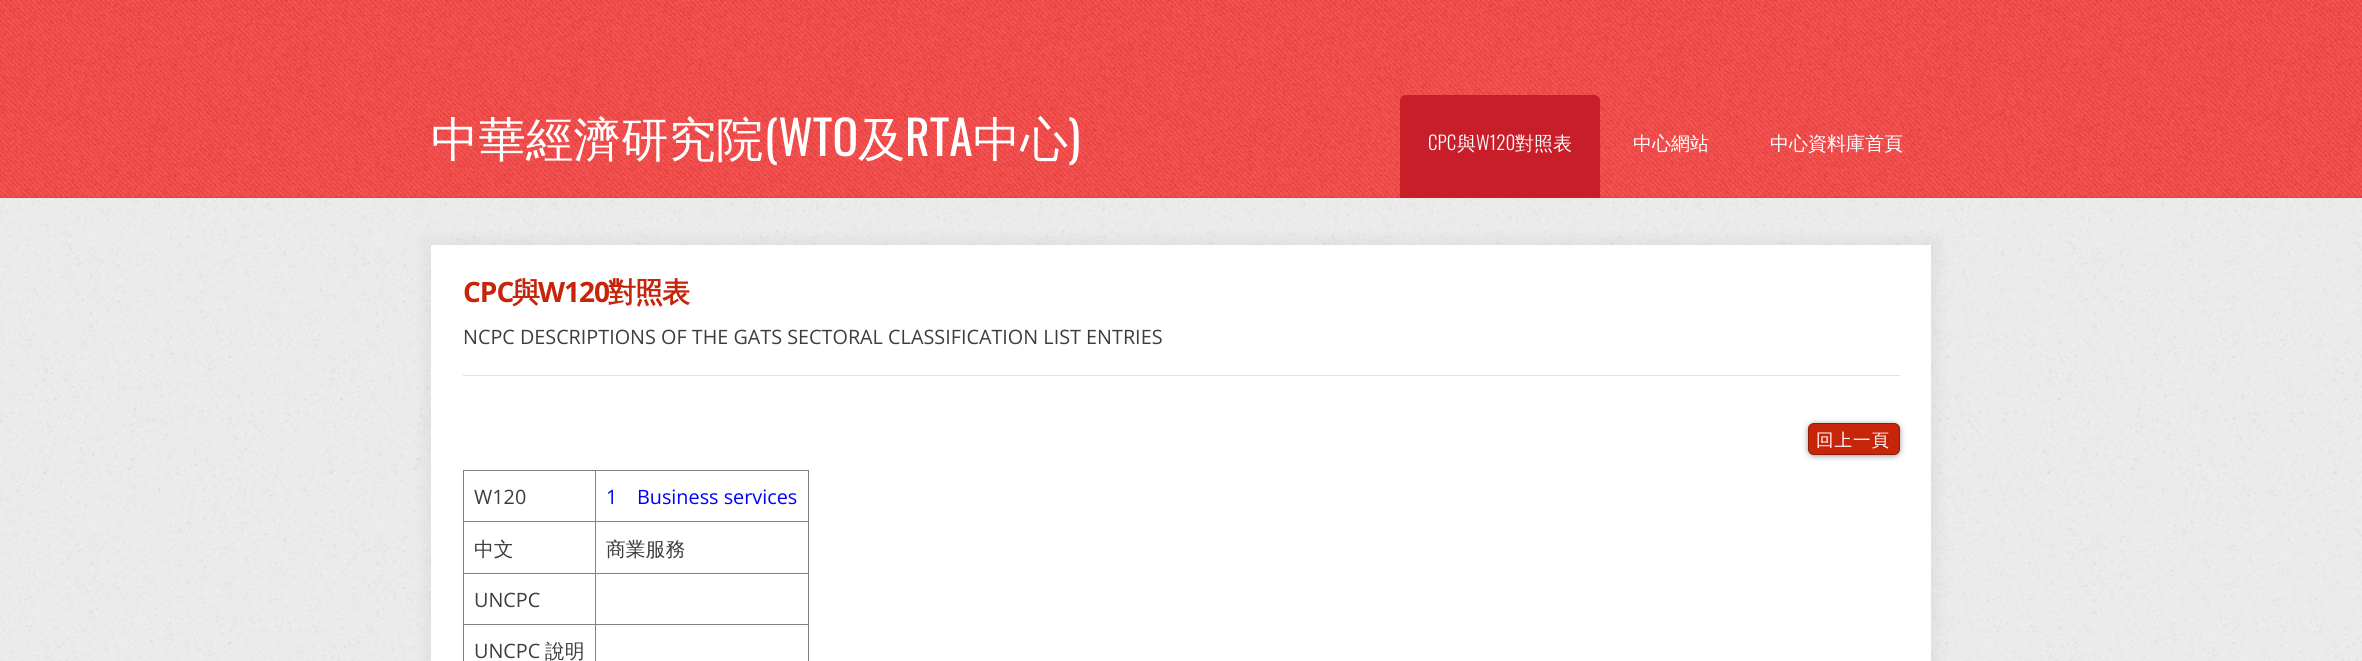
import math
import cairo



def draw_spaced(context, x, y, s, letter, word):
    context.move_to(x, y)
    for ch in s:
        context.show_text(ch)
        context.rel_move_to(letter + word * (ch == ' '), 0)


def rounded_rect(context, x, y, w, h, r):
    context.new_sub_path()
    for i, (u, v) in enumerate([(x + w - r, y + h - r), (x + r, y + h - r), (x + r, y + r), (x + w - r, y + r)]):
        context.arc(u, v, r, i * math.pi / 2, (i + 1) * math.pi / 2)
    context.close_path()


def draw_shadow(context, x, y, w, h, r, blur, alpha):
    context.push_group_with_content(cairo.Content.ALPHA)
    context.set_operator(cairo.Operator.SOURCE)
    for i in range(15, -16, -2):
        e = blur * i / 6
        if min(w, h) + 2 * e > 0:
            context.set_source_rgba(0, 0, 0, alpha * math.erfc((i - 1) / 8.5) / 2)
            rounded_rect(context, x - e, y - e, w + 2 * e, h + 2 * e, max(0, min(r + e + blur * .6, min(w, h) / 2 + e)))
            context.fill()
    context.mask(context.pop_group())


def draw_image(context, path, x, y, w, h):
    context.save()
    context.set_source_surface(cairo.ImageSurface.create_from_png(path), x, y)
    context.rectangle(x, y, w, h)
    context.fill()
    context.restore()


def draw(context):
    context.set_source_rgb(1, 1, 1)
    context.paint()
    draw_image(context, "images/1.png", 0, 198, 2362, 463)
    context.set_source_rgb(246 / 255, 42 / 255, 42 / 255)
    context.rectangle(0, 197, 2362, 1)
    context.fill()
    draw_image(context, "images/2.png", 0, 0, 2362, 198)
    context.set_source_rgb(199 / 255, 30 / 255, 41 / 255)
    context.new_path()
    context.move_to(1406, 95)
    context.line_to(1594, 95)
    context.curve_to(1597.5, 95, 1600, 97.5, 1600, 101)
    context.line_to(1600, 198)
    context.line_to(1400, 198)
    context.line_to(1400, 101)
    context.curve_to(1400, 97.5, 1402.5, 95, 1406, 95)
    context.close_path()
    context.fill()
    context.set_source_rgb(0, 0, 0)
    draw_shadow(context, 425, 239, 1513, 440, 0, 6, 0.05)
    context.set_source_rgb(1, 1, 1)
    context.rectangle(431, 245, 1500, 416)
    context.fill()
    context.set_source_rgb(226 / 255, 226 / 255, 226 / 255)
    context.rectangle(463, 375, 1437, 1)
    context.fill()
    context.set_source_rgb(0, 0, 0)
    draw_shadow(context, 1808, 424, 92, 32, 6, 3, 0.4)
    context.set_source_rgb(198 / 255, 37 / 255, 10 / 255)
    rounded_rect(context, 1808.5, 423.5, 91, 31, 5.5)
    context.fill_preserve()
    context.set_source_rgb(145 / 255, 27 / 255, 7 / 255)
    context.set_line_width(1)
    context.stroke()
    context.set_source_rgb(128 / 255, 128 / 255, 128 / 255)
    context.rectangle(463, 470, 346, 1)
    context.fill()
    context.rectangle(808, 470, 1, 191)
    context.fill()
    context.rectangle(463, 470, 1, 191)
    context.fill()
    context.rectangle(463, 521, 346, 1)
    context.fill()
    context.rectangle(463, 573, 346, 1)
    context.fill()
    context.rectangle(463, 624, 346, 1)
    context.fill()
    context.rectangle(595, 470, 1, 191)
    context.fill()
    context.select_font_face("WenQuanYi Zen Hei Medium")
    context.set_font_size(47.5)
    context.set_source_rgb(1, 1, 1)
    context.move_to(431, 156)
    context.show_text("中華經濟研究院")
    context.select_font_face("Oswald")
    context.move_to(764, 156)
    context.show_text("(WTO")
    context.select_font_face("WenQuanYi Zen Hei Medium")
    context.move_to(858, 156)
    context.show_text("及")
    context.select_font_face("Oswald")
    context.move_to(905, 156)
    context.show_text("RTA")
    context.select_font_face("WenQuanYi Zen Hei Medium")
    context.move_to(973, 156)
    context.show_text("中心")
    context.select_font_face("Oswald")
    context.move_to(1068, 156)
    context.show_text(")")
    context.select_font_face("Oswald Light")
    context.set_font_size(19)
    context.move_to(1428, 150)
    context.show_text("CPC")
    context.select_font_face("WenQuanYi Zen Hei Medium")
    context.move_to(1457, 150)
    context.show_text("與")
    context.select_font_face("Oswald Light")
    context.move_to(1476, 150)
    context.show_text("W120")
    context.select_font_face("WenQuanYi Zen Hei Medium")
    context.move_to(1515, 150)
    context.show_text("對照表")
    context.move_to(1633, 150)
    context.show_text("中心網站")
    context.move_to(1770, 150)
    context.show_text("中心資料庫首頁")
    context.select_font_face("Open Sans", cairo.FontSlant.NORMAL, cairo.FontWeight.BOLD)
    context.set_font_size(28)
    context.set_source_rgb(198 / 255, 37 / 255, 10 / 255)
    draw_spaced(context, 463, 302, "CPC", -1, 0)
    context.select_font_face("WenQuanYi Zen Hei", cairo.FontSlant.NORMAL, cairo.FontWeight.BOLD)
    draw_spaced(context, 512, 302, "與", -1, 0)
    context.select_font_face("Open Sans", cairo.FontSlant.NORMAL, cairo.FontWeight.BOLD)
    draw_spaced(context, 538, 302, "W120", -1, 0)
    context.select_font_face("WenQuanYi Zen Hei", cairo.FontSlant.NORMAL, cairo.FontWeight.BOLD)
    draw_spaced(context, 608, 302, "對照表", -1, 0)
    context.select_font_face("Open Sans")
    context.set_font_size(19.8)
    context.set_source_rgb(61 / 255, 61 / 255, 61 / 255)
    context.move_to(463, 344)
    context.show_text("NCPC DESCRIPTIONS OF THE GATS SECTORAL CLASSIFICATION LIST ENTRIES")
    context.select_font_face("WenQuanYi Zen Hei Medium")
    context.set_font_size(17.5)
    context.set_source_rgb(1, 1, 1)
    draw_spaced(context, 1816, 446, "回上一頁", 1, 0)
    context.select_font_face("Open Sans")
    context.set_font_size(19.8)
    context.set_source_rgb(61 / 255, 61 / 255, 61 / 255)
    context.move_to(474, 504)
    context.show_text("W120")
    context.set_source_rgb(0, 0, 1)
    context.move_to(606, 504)
    context.show_text("1")
    context.move_to(637, 504)
    context.show_text("Business services")
    context.select_font_face("WenQuanYi Zen Hei Medium")
    context.set_source_rgb(61 / 255, 61 / 255, 61 / 255)
    context.move_to(474, 556)
    context.show_text("中文")
    context.move_to(606, 556)
    context.show_text("商業服務")
    context.select_font_face("Open Sans")
    context.move_to(474, 607)
    context.show_text("UNCPC")
    context.move_to(474, 658)
    context.show_text("UNCPC")
    context.select_font_face("WenQuanYi Zen Hei Medium")
    context.move_to(545, 658)
    context.show_text("說明")


surface = cairo.ImageSurface(cairo.Format.RGB24, 2362, 661)
context = cairo.Context(surface)
options = cairo.FontOptions()
options.set_hint_metrics(cairo.HintMetrics.OFF)
options.set_hint_style(cairo.HintStyle.NONE)
context.set_font_options(options)
context.set_miter_limit(4)
draw(context)
surface.write_to_png("out.png")
